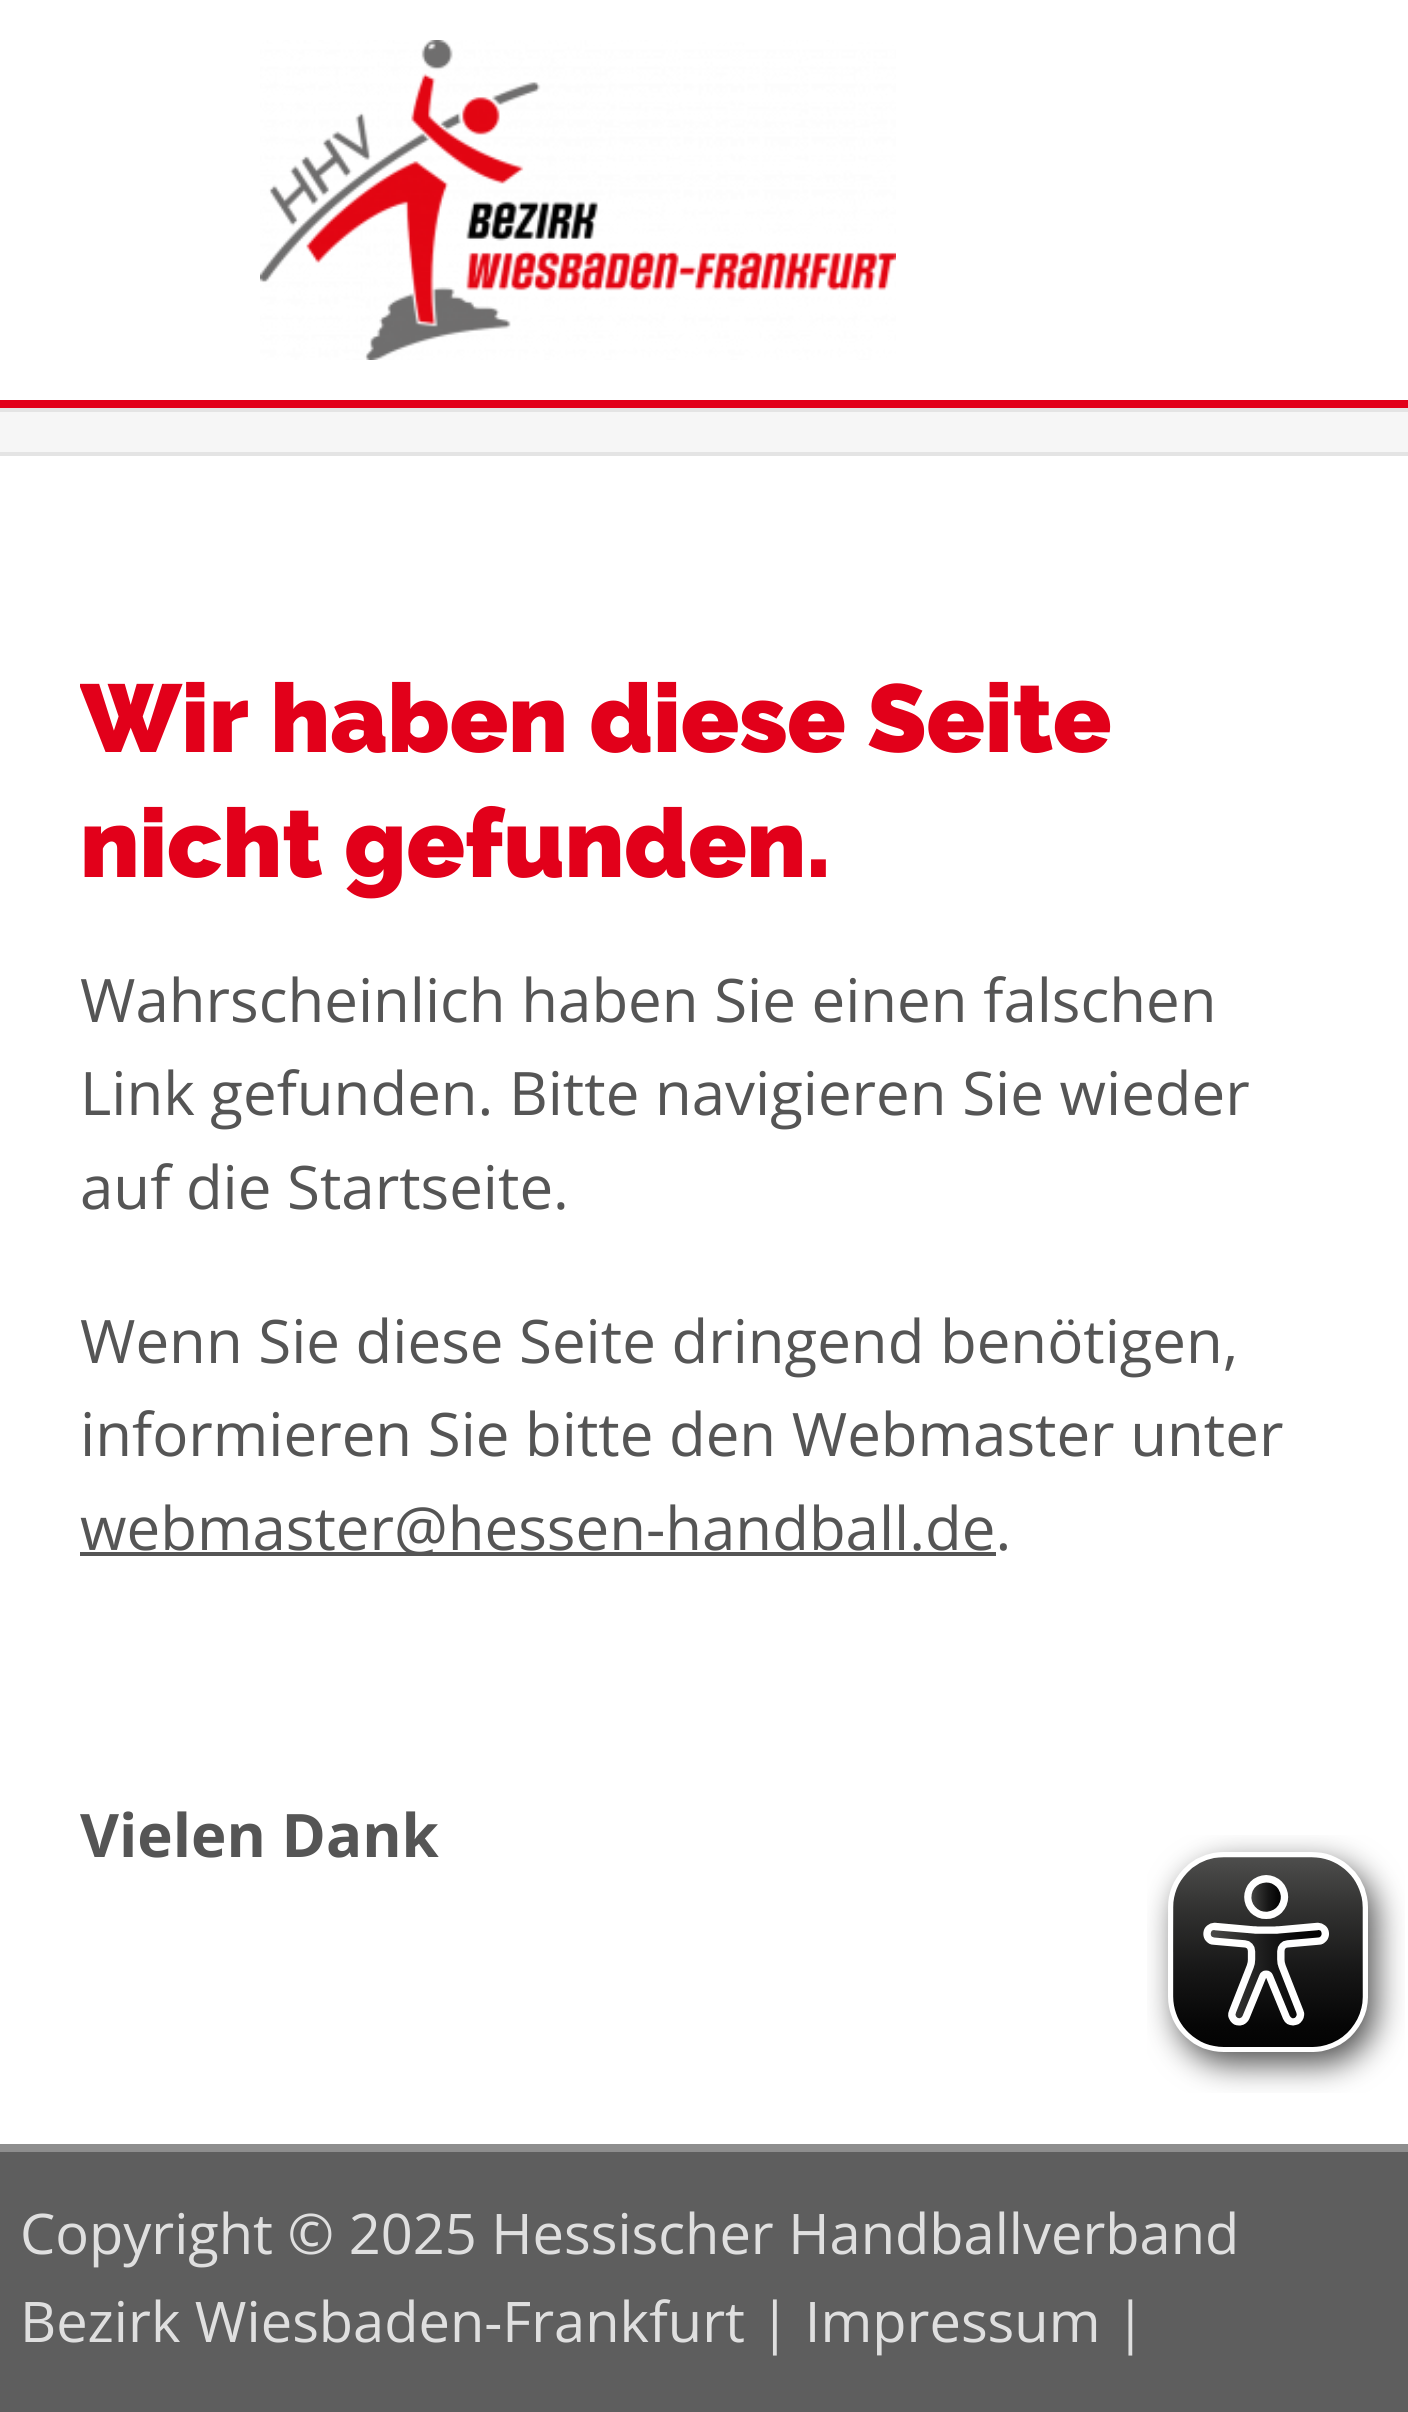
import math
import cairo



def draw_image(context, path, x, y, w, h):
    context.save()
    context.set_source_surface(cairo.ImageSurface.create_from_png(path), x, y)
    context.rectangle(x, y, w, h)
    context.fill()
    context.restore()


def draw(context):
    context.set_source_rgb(1, 1, 1)
    context.paint()
    context.set_source_rgb(226 / 255, 0, 26 / 255)
    context.rectangle(0, 400, 1408, 8)
    context.fill()
    draw_image(context, "images/1.png", 260, 40, 636, 320)
    context.set_source_rgb(246 / 255, 246 / 255, 246 / 255)
    context.rectangle(0, 412, 1408, 40)
    context.fill()
    context.set_source_rgb(228 / 255, 228 / 255, 228 / 255)
    context.rectangle(0, 408, 1408, 4)
    context.fill()
    context.rectangle(0, 452, 1408, 4)
    context.fill()
    context.set_source_rgb(85 / 255, 85 / 255, 85 / 255)
    context.rectangle(80, 1552, 916, 4)
    context.fill()
    draw_image(context, "images/2.png", 1147, 1835, 258, 258)
    context.set_source_rgb(94 / 255, 94 / 255, 94 / 255)
    context.rectangle(0, 2152, 1408, 260)
    context.fill()
    context.set_source_rgb(142 / 255, 142 / 255, 142 / 255)
    context.rectangle(0, 2144, 1408, 8)
    context.fill()
    context.save()
    context.rectangle(80, 656, 1248, 1288)
    context.clip()
    context.select_font_face("Raleway Black")
    context.set_font_size(96)
    context.set_source_rgb(226 / 255, 0, 26 / 255)
    context.move_to(80, 752)
    context.show_text("Wir haben diese Seite")
    context.restore()
    context.select_font_face("Raleway Black")
    context.set_font_size(96)
    context.set_source_rgb(226 / 255, 0, 26 / 255)
    context.move_to(80, 877)
    context.show_text("nicht gefunden.")
    context.select_font_face("Open Sans")
    context.set_font_size(60)
    context.set_source_rgb(85 / 255, 85 / 255, 85 / 255)
    context.move_to(80, 1022)
    context.show_text("Wahrscheinlich haben Sie einen falschen")
    context.move_to(80, 1115)
    context.show_text("Link gefunden. Bitte navigieren Sie wieder")
    context.move_to(80, 1209)
    context.show_text("auf die Startseite.")
    context.move_to(80, 1363)
    context.show_text("Wenn Sie diese Seite dringend benötigen,")
    context.move_to(80, 1456)
    context.show_text("informieren Sie bitte den Webmaster unter")
    context.move_to(80, 1550)
    context.show_text("webmaster@hessen-handball.de.")
    context.select_font_face("Open Sans", cairo.FontSlant.NORMAL, cairo.FontWeight.BOLD)
    context.move_to(80, 1857)
    context.show_text("Vielen Dank")
    context.select_font_face("Open Sans")
    context.set_font_size(56)
    context.set_source_rgb(223 / 255, 223 / 255, 223 / 255)
    context.move_to(20, 2254)
    context.show_text("Copyright © 2025 Hessischer Handballverband")
    context.move_to(20, 2342)
    context.show_text("Bezirk Wiesbaden-Frankfurt | Impressum |")


surface = cairo.ImageSurface(cairo.Format.RGB24, 1408, 2412)
context = cairo.Context(surface)
options = cairo.FontOptions()
options.set_hint_metrics(cairo.HintMetrics.OFF)
options.set_hint_style(cairo.HintStyle.NONE)
context.set_font_options(options)
context.set_miter_limit(4)
draw(context)
surface.write_to_png("out.png")
